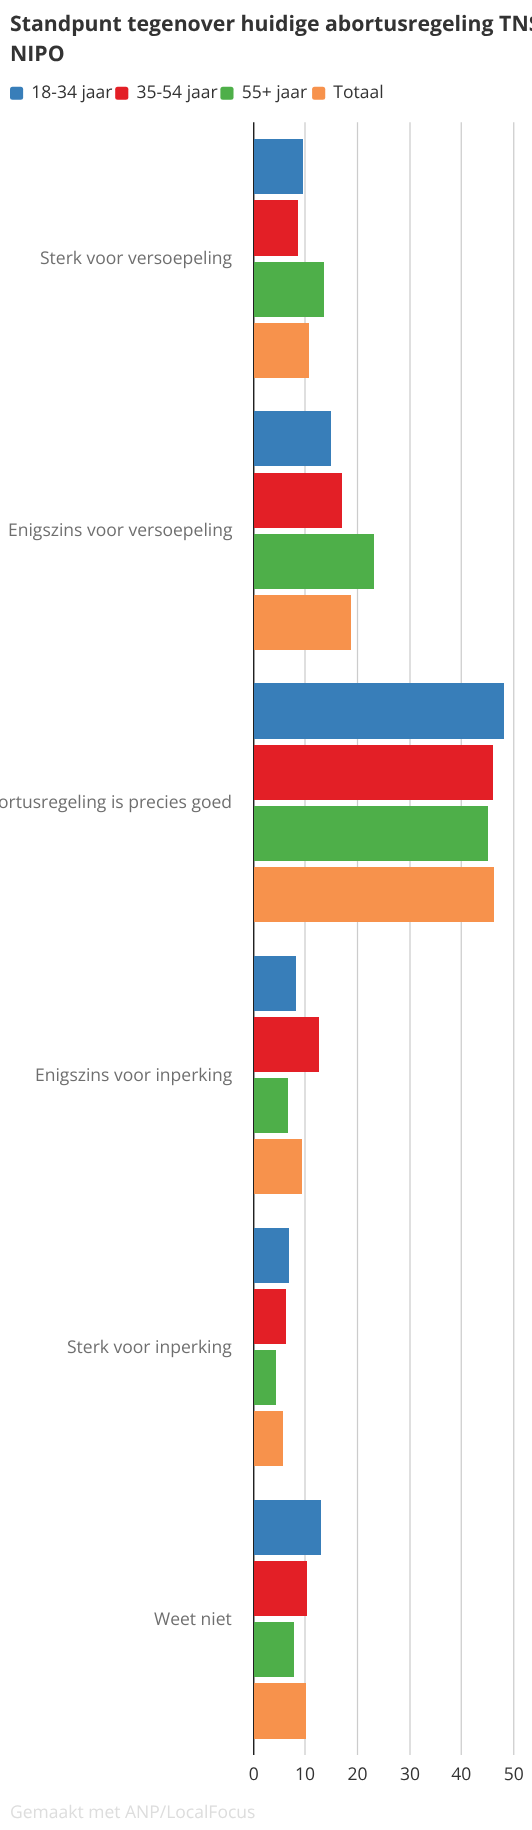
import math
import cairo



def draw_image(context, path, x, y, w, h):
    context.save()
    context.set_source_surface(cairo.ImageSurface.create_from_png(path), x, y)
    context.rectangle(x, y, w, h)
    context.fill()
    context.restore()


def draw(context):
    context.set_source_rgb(1, 1, 1)
    context.paint()
    draw_image(context, "images/1.png", 10, 14, 522, 1805)
    draw_image(context, "images/2.png", 254, 139, 250, 1600)
    context.select_font_face("Open Sans")
    context.set_font_size(17.5)
    context.set_source_rgb(110 / 255, 110 / 255, 110 / 255)
    context.move_to(40, 264)
    context.show_text("Sterk voor versoepeling")
    context.move_to(8, 536)
    context.show_text("Enigszins voor versoepeling")
    context.move_to(-2, 808)
    context.show_text("ortusregeling is precies goed")
    context.move_to(35, 1081)
    context.show_text("Enigszins voor inperking")
    context.move_to(67, 1353)
    context.show_text("Sterk voor inperking")
    context.move_to(154, 1625)
    context.show_text("Weet niet")


surface = cairo.ImageSurface(cairo.Format.RGB24, 532, 1830)
context = cairo.Context(surface)
options = cairo.FontOptions()
options.set_hint_metrics(cairo.HintMetrics.OFF)
options.set_hint_style(cairo.HintStyle.NONE)
context.set_font_options(options)
context.set_miter_limit(4)
draw(context)
surface.write_to_png("out.png")
